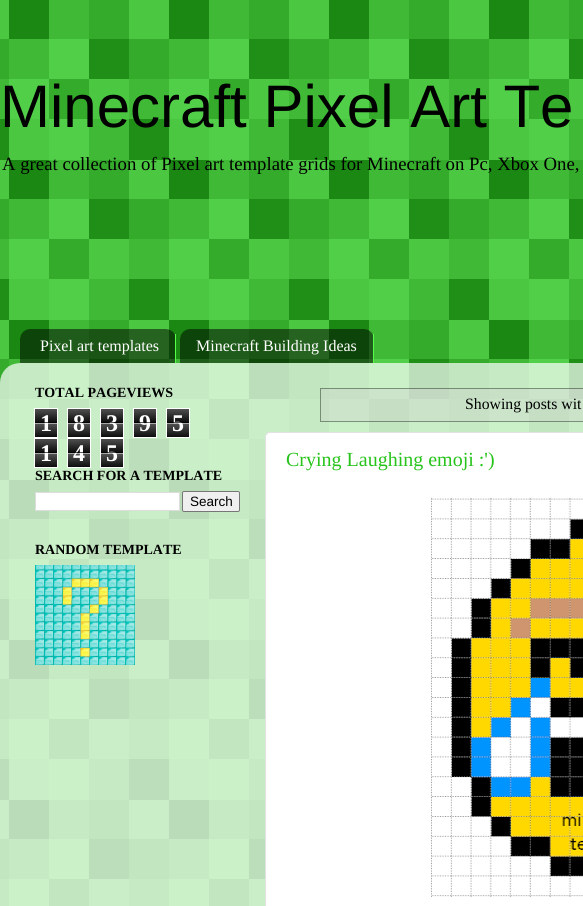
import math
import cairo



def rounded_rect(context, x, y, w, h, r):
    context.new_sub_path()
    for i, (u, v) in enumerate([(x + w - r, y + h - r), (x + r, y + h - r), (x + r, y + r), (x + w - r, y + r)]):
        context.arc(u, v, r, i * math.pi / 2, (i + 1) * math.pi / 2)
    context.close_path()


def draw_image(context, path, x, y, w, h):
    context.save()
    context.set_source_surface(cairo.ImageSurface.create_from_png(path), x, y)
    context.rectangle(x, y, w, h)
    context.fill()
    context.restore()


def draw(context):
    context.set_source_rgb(39 / 255, 195 / 255, 27 / 255)
    context.paint()
    draw_image(context, "images/1.png", 0, 0, 583, 906)
    draw_image(context, "images/2.png", 20, 329, 155, 34)
    context.set_source_rgb(86 / 255, 1, 71 / 255)
    context.rectangle(175, 334, 1, 29)
    context.fill()
    draw_image(context, "images/3.png", 180, 329, 193, 34)
    context.rectangle(373, 334, 1, 29)
    context.fill()
    draw_image(context, "images/4.png", 0, 363, 583, 543)
    draw_image(context, "images/5.png", 35, 409, 22, 28)
    context.rectangle(34.5, 408.5, 23, 29)
    context.set_source_rgb(1, 1, 1)
    context.set_line_width(1)
    context.stroke()
    draw_image(context, "images/5.png", 68, 409, 22, 28)
    context.rectangle(67.5, 408.5, 23, 29)
    context.stroke()
    draw_image(context, "images/5.png", 101, 409, 22, 28)
    context.rectangle(100.5, 408.5, 23, 29)
    context.stroke()
    draw_image(context, "images/5.png", 134, 409, 22, 28)
    context.rectangle(133.5, 408.5, 23, 29)
    context.stroke()
    draw_image(context, "images/5.png", 167, 409, 22, 28)
    context.rectangle(166.5, 408.5, 23, 29)
    context.stroke()
    draw_image(context, "images/5.png", 35, 439, 22, 28)
    context.rectangle(34.5, 438.5, 23, 29)
    context.stroke()
    draw_image(context, "images/5.png", 68, 439, 22, 28)
    context.rectangle(67.5, 438.5, 23, 29)
    context.stroke()
    draw_image(context, "images/5.png", 101, 439, 22, 28)
    context.rectangle(100.5, 438.5, 23, 29)
    context.stroke()
    context.rectangle(35.5, 492.5, 144, 18)
    context.fill_preserve()
    context.set_source_rgb(221 / 255, 221 / 255, 221 / 255)
    context.stroke()
    context.set_source_rgb(239 / 255, 239 / 255, 239 / 255)
    rounded_rect(context, 182.5, 491.5, 57, 20, 1.5)
    context.fill_preserve()
    context.set_source_rgb(118 / 255, 118 / 255, 118 / 255)
    context.stroke()
    draw_image(context, "images/6.png", 35, 565, 100, 100)
    context.rectangle(320.5, 388.5, 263, 33)
    context.set_source_rgba(0, 0, 0, 0.4)
    context.stroke()
    context.set_source_rgba(204 / 255, 204 / 255, 204 / 255, 0.32)
    context.rectangle(321, 389, 262, 32)
    context.fill()
    context.set_source_rgb(1, 1, 1)
    rounded_rect(context, 265.5, 432.5, 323, 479, 4.5)
    context.fill_preserve()
    context.set_source_rgb(226 / 255, 226 / 255, 226 / 255)
    context.stroke()
    draw_image(context, "images/7.png", 431, 497, 152, 400)
    context.select_font_face("Liberation Sans")
    context.set_font_size(60)
    context.set_source_rgb(0, 0, 0)
    context.move_to(0, 127)
    context.show_text("Minecraft Pixel Art Te")
    context.select_font_face("Liberation Serif")
    context.set_font_size(18.75)
    context.move_to(2, 170)
    context.show_text("A great collection of Pixel art template grids for Minecraft on Pc, Xbox One,")
    context.set_font_size(16)
    context.set_source_rgb(1, 1, 1)
    context.move_to(40, 351)
    context.show_text("Pixel art templates")
    context.move_to(196, 351)
    context.show_text("Minecraft Building Ideas")
    context.select_font_face("Liberation Serif", cairo.FontSlant.NORMAL, cairo.FontWeight.BOLD)
    context.set_font_size(14)
    context.set_source_rgb(0, 0, 0)
    context.move_to(35, 397)
    context.show_text("TOTAL PAGEVIEWS")
    context.set_font_size(24)
    context.set_source_rgb(1, 1, 1)
    context.move_to(40, 431)
    context.show_text("1")
    context.set_source_rgba(0, 0, 0, 0.65)
    context.rectangle(35, 422, 22, 1)
    context.fill()
    context.set_source_rgba(1, 1, 1, 0.65)
    context.rectangle(35, 423, 22, 1)
    context.fill()
    context.set_source_rgb(1, 1, 1)
    context.move_to(73, 431)
    context.show_text("8")
    context.set_source_rgba(0, 0, 0, 0.65)
    context.rectangle(68, 422, 22, 1)
    context.fill()
    context.set_source_rgba(1, 1, 1, 0.65)
    context.rectangle(68, 423, 22, 1)
    context.fill()
    context.set_source_rgb(1, 1, 1)
    context.move_to(106, 431)
    context.show_text("3")
    context.set_source_rgba(0, 0, 0, 0.65)
    context.rectangle(101, 422, 22, 1)
    context.fill()
    context.set_source_rgba(1, 1, 1, 0.65)
    context.rectangle(101, 423, 22, 1)
    context.fill()
    context.set_source_rgb(1, 1, 1)
    context.move_to(139, 431)
    context.show_text("9")
    context.set_source_rgba(0, 0, 0, 0.65)
    context.rectangle(134, 422, 22, 1)
    context.fill()
    context.set_source_rgba(1, 1, 1, 0.65)
    context.rectangle(134, 423, 22, 1)
    context.fill()
    context.set_source_rgb(1, 1, 1)
    context.move_to(172, 431)
    context.show_text("5")
    context.set_source_rgba(0, 0, 0, 0.65)
    context.rectangle(167, 422, 22, 1)
    context.fill()
    context.set_source_rgba(1, 1, 1, 0.65)
    context.rectangle(167, 423, 22, 1)
    context.fill()
    context.set_source_rgb(1, 1, 1)
    context.move_to(40, 461)
    context.show_text("1")
    context.set_source_rgba(0, 0, 0, 0.65)
    context.rectangle(35, 452, 22, 1)
    context.fill()
    context.set_source_rgba(1, 1, 1, 0.65)
    context.rectangle(35, 453, 22, 1)
    context.fill()
    context.set_source_rgb(1, 1, 1)
    context.move_to(73, 461)
    context.show_text("4")
    context.set_source_rgba(0, 0, 0, 0.65)
    context.rectangle(68, 452, 22, 1)
    context.fill()
    context.set_source_rgba(1, 1, 1, 0.65)
    context.rectangle(68, 453, 22, 1)
    context.fill()
    context.set_source_rgb(1, 1, 1)
    context.move_to(106, 461)
    context.show_text("5")
    context.set_source_rgba(0, 0, 0, 0.65)
    context.rectangle(101, 452, 22, 1)
    context.fill()
    context.set_source_rgba(1, 1, 1, 0.65)
    context.rectangle(101, 453, 22, 1)
    context.fill()
    context.set_font_size(14)
    context.set_source_rgb(0, 0, 0)
    context.move_to(35, 480)
    context.show_text("SEARCH FOR A TEMPLATE")
    context.select_font_face("Liberation Sans")
    context.set_font_size(13.5)
    context.move_to(190, 506)
    context.show_text("Search")
    context.select_font_face("Liberation Serif", cairo.FontSlant.NORMAL, cairo.FontWeight.BOLD)
    context.set_font_size(14)
    context.move_to(35, 554)
    context.show_text("RANDOM TEMPLATE")
    context.select_font_face("Liberation Serif")
    context.set_font_size(15.75)
    context.move_to(465, 409)
    context.show_text("Showing posts wit")
    context.set_font_size(20)
    context.set_source_rgb(39 / 255, 195 / 255, 27 / 255)
    context.move_to(286, 466)
    context.show_text("Crying Laughing emoji :')")


surface = cairo.ImageSurface(cairo.Format.RGB24, 583, 906)
context = cairo.Context(surface)
options = cairo.FontOptions()
options.set_hint_metrics(cairo.HintMetrics.OFF)
options.set_hint_style(cairo.HintStyle.NONE)
context.set_font_options(options)
context.set_miter_limit(4)
draw(context)
surface.write_to_png("out.png")
